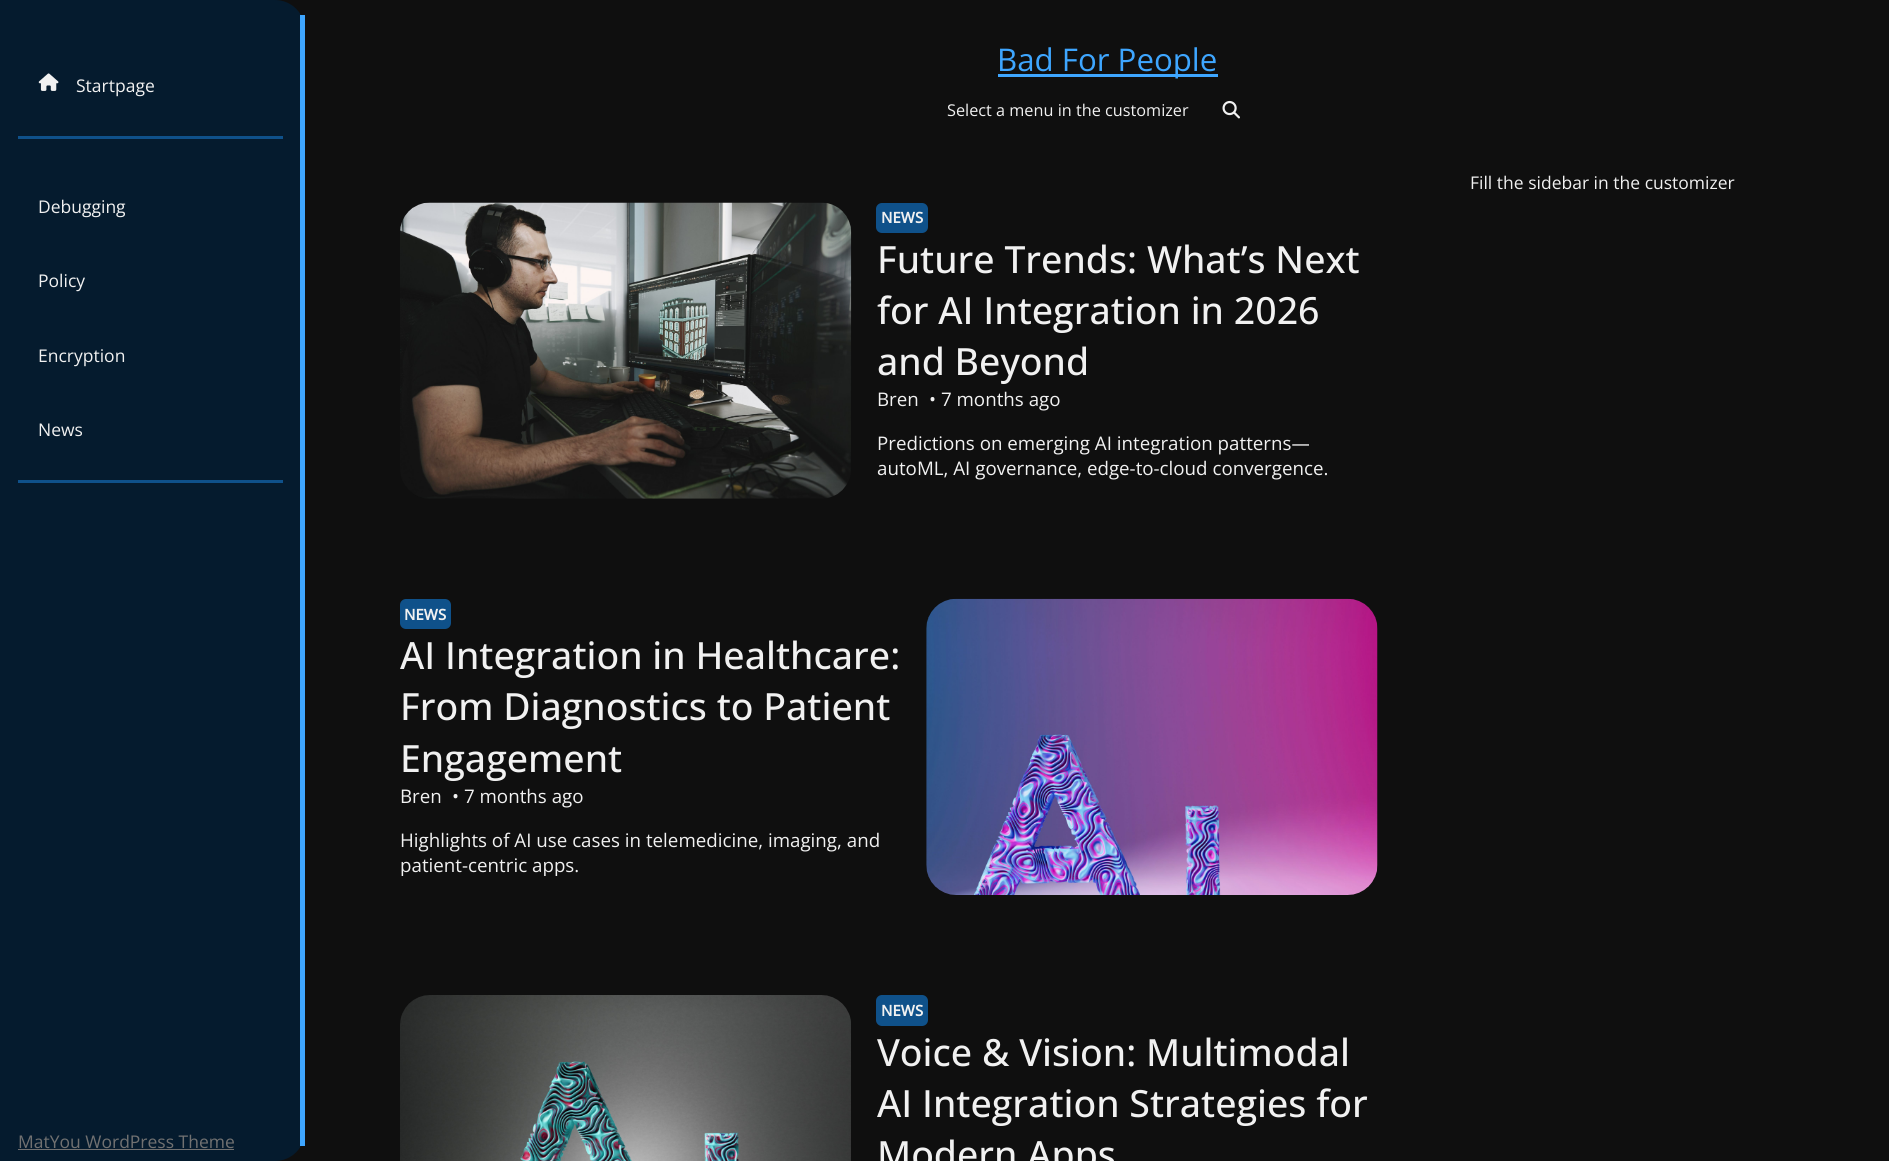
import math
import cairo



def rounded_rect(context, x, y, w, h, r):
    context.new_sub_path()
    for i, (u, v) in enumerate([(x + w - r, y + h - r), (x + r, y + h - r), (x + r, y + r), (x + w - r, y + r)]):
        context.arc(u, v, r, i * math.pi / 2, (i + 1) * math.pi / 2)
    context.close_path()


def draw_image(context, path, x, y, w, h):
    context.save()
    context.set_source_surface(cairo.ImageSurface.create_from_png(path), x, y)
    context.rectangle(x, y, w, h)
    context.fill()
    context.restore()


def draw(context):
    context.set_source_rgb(15 / 255, 15 / 255, 15 / 255)
    context.paint()
    context.set_source_rgb(5 / 255, 27 / 255, 46 / 255)
    context.new_path()
    context.move_to(0, 0)
    context.line_to(275, 0)
    context.curve_to(291.5, 0, 305, 13.5, 305, 30)
    context.line_to(305, 1131)
    context.curve_to(305, 1147.5, 291.5, 1161, 275, 1161)
    context.line_to(0, 1161)
    context.close_path()
    context.fill()
    context.set_source_rgb(62 / 255, 166 / 255, 1)
    context.rectangle(300, 15, 5, 1131)
    context.fill()
    context.set_source_rgb(15 / 255, 81 / 255, 138 / 255)
    context.rectangle(18, 136, 265, 3)
    context.fill()
    draw_image(context, "images/1.png", 38, 73, 21, 18)
    context.rectangle(18, 480, 265, 3)
    context.fill()
    context.set_source_rgb(113 / 255, 113 / 255, 113 / 255)
    context.rectangle(18, 1149, 216, 1)
    context.fill()
    context.set_source_rgb(62 / 255, 166 / 255, 1)
    context.rectangle(998, 74, 220, 3)
    context.fill()
    draw_image(context, "images/2.png", 1222, 100, 18, 19)
    draw_image(context, "images/3.png", 400, 202, 452, 297)
    context.set_source_rgb(15 / 255, 81 / 255, 138 / 255)
    rounded_rect(context, 876, 203, 52, 30, 6)
    context.fill()
    rounded_rect(context, 400, 599, 51, 30, 6)
    context.fill()
    draw_image(context, "images/4.png", 926, 598, 452, 297)
    draw_image(context, "images/5.png", 400, 995, 451, 166)
    rounded_rect(context, 876, 995, 52, 31, 6)
    context.fill()
    context.select_font_face("Open Sans")
    context.set_font_size(17.5)
    context.set_source_rgb(241 / 255, 241 / 255, 241 / 255)
    context.move_to(76, 92)
    context.show_text("Startpage")
    context.move_to(38, 213)
    context.show_text("Debugging")
    context.move_to(38, 287)
    context.show_text("Policy")
    context.move_to(38, 362)
    context.show_text("Encryption")
    context.move_to(38, 436)
    context.show_text("News")
    context.set_source_rgb(113 / 255, 113 / 255, 113 / 255)
    context.move_to(18, 1148)
    context.show_text("MatYou WordPress Theme")
    context.set_font_size(31.25)
    context.set_source_rgb(62 / 255, 166 / 255, 1)
    context.move_to(997, 71)
    context.show_text("Bad For People")
    context.set_font_size(16.25)
    context.set_source_rgb(241 / 255, 241 / 255, 241 / 255)
    context.move_to(947, 116)
    context.show_text("Select a menu in the customizer")
    context.set_font_size(17.5)
    context.move_to(1470, 189)
    context.show_text("Fill the sidebar in the customizer")
    context.select_font_face("Open Sans", cairo.FontSlant.NORMAL, cairo.FontWeight.BOLD)
    context.set_font_size(15)
    context.move_to(881, 223)
    context.show_text("NEWS")
    context.select_font_face("Open Sans Medium")
    context.set_font_size(37.5)
    context.move_to(877, 273)
    context.show_text("Future Trends: What’s Next")
    context.move_to(877, 324)
    context.show_text("for AI Integration in 2026")
    context.move_to(877, 375)
    context.show_text("and Beyond")
    context.select_font_face("Open Sans")
    context.set_font_size(18.75)
    context.move_to(877, 406)
    context.show_text("Bren")
    context.move_to(929, 406)
    context.show_text("• 7 months ago")
    context.move_to(877, 450)
    context.show_text("Predictions on emerging AI integration patterns—")
    context.move_to(877, 475)
    context.show_text("autoML, AI governance, edge-to-cloud convergence.")
    context.select_font_face("Open Sans", cairo.FontSlant.NORMAL, cairo.FontWeight.BOLD)
    context.set_font_size(15)
    context.move_to(404, 620)
    context.show_text("NEWS")
    context.select_font_face("Open Sans Medium")
    context.set_font_size(37.5)
    context.move_to(400, 669)
    context.show_text("AI Integration in Healthcare:")
    context.move_to(400, 720)
    context.show_text("From Diagnostics to Patient")
    context.move_to(400, 772)
    context.show_text("Engagement")
    context.select_font_face("Open Sans")
    context.set_font_size(18.75)
    context.move_to(400, 803)
    context.show_text("Bren")
    context.move_to(452, 803)
    context.show_text("• 7 months ago")
    context.move_to(400, 847)
    context.show_text("Highlights of AI use cases in telemedicine, imaging, and")
    context.save()
    context.rectangle(400, 826, 501, 50)
    context.clip()
    context.move_to(400, 872)
    context.show_text("patient-centric apps.")
    context.restore()
    context.select_font_face("Open Sans", cairo.FontSlant.NORMAL, cairo.FontWeight.BOLD)
    context.set_font_size(15)
    context.move_to(881, 1016)
    context.show_text("NEWS")
    context.select_font_face("Open Sans Medium")
    context.set_font_size(37.5)
    context.move_to(877, 1066)
    context.show_text("Voice & Vision: Multimodal")
    context.move_to(877, 1117)
    context.show_text("AI Integration Strategies for")
    context.move_to(877, 1168)
    context.show_text("Modern Apps")


surface = cairo.ImageSurface(cairo.Format.RGB24, 1889, 1161)
context = cairo.Context(surface)
options = cairo.FontOptions()
options.set_hint_metrics(cairo.HintMetrics.OFF)
options.set_hint_style(cairo.HintStyle.NONE)
context.set_font_options(options)
context.set_miter_limit(4)
draw(context)
surface.write_to_png("out.png")
